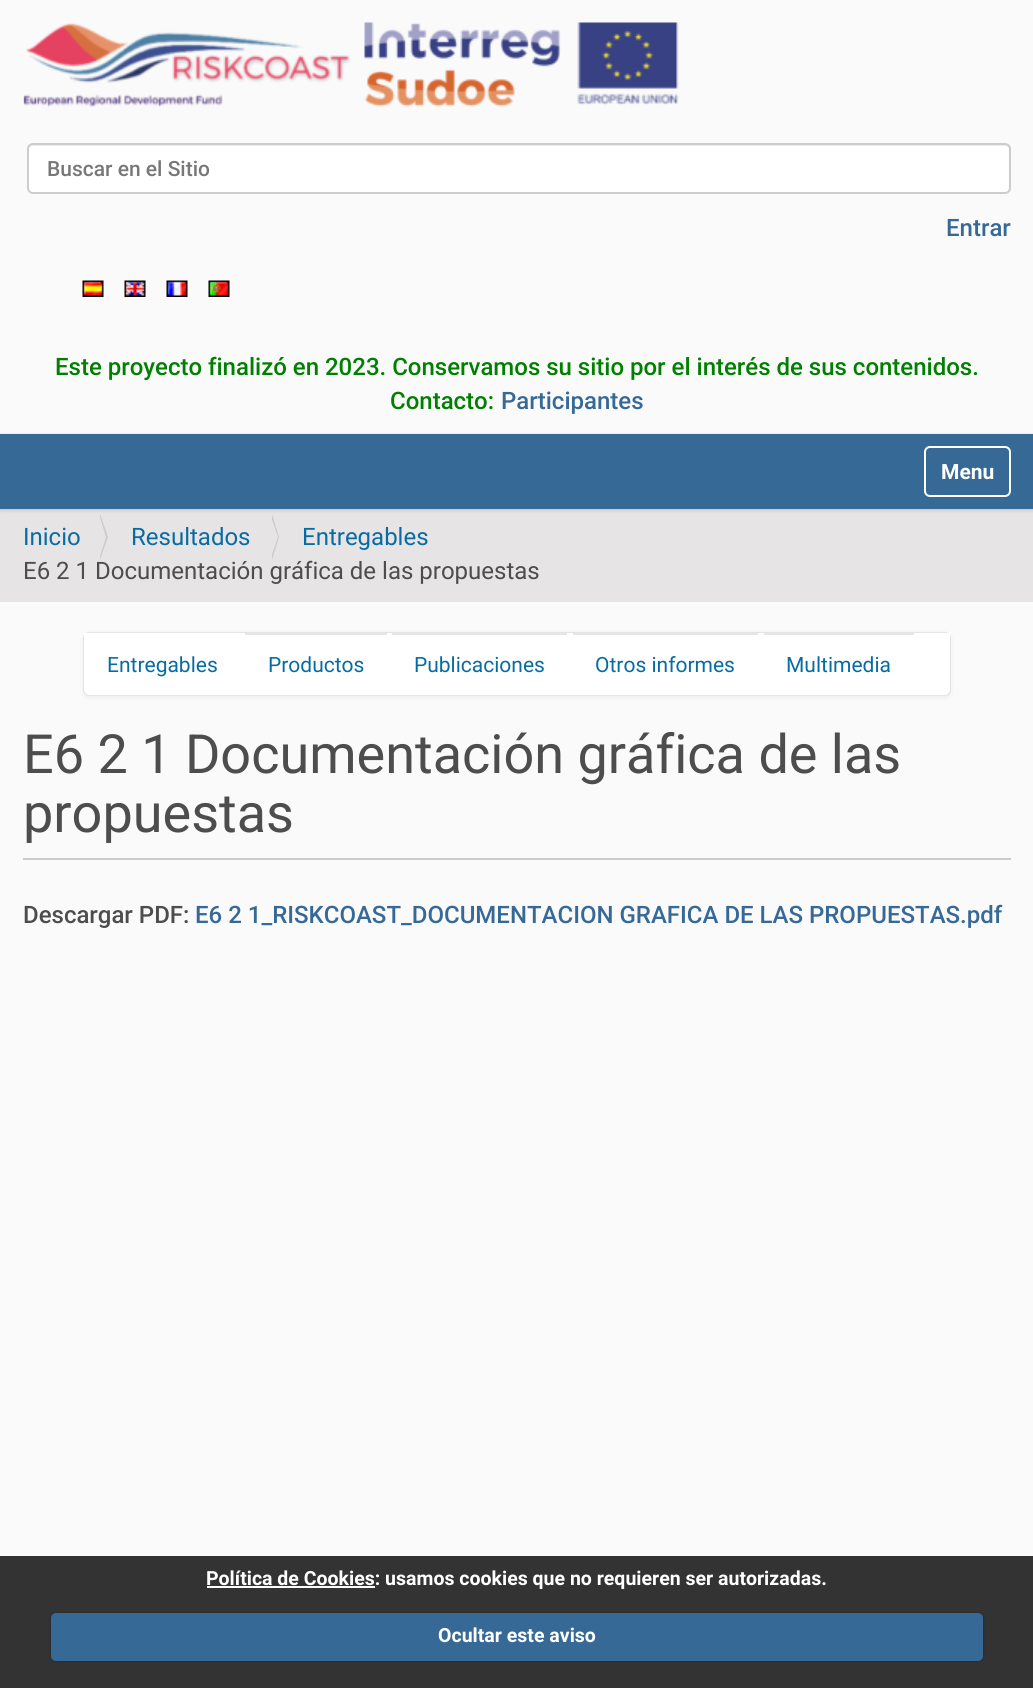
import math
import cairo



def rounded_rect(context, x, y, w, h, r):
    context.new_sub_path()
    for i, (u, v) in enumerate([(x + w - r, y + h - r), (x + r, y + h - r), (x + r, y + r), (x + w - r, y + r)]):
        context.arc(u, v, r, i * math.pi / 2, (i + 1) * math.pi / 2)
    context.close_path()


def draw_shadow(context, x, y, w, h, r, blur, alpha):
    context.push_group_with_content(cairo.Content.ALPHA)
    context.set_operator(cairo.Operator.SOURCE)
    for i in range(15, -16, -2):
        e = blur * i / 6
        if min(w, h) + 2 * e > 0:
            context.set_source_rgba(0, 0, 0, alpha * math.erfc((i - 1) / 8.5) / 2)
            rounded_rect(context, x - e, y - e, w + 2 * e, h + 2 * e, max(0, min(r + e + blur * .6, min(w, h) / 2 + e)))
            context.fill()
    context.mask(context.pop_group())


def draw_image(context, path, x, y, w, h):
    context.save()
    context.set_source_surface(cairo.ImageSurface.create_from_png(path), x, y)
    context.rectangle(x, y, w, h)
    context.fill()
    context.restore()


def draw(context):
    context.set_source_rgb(250 / 255, 250 / 255, 250 / 255)
    context.paint()
    draw_image(context, "images/1.png", 23, 22, 656, 85)
    context.set_source_rgb(1, 1, 1)
    rounded_rect(context, 27, 143, 984, 51, 6)
    context.fill()
    context.set_source_rgb(236 / 255, 236 / 255, 236 / 255)
    context.new_path()
    context.move_to(33, 146)
    context.line_to(1005, 146)
    context.curve_to(1007, 146, 1010, 148, 1010, 150)
    context.line_to(1010, 149)
    context.curve_to(1010, 146, 1008, 144, 1005, 144)
    context.line_to(34, 144)
    context.curve_to(32, 144, 30, 146, 29, 148)
    context.curve_to(30, 147, 32, 146, 33, 146)
    context.close_path()
    context.fill()
    rounded_rect(context, 28, 144, 982, 49, 5)
    context.set_source_rgb(204 / 255, 204 / 255, 204 / 255)
    context.stroke()
    draw_image(context, "images/2.png", 82, 280, 22, 17)
    draw_image(context, "images/3.png", 124, 280, 22, 17)
    draw_image(context, "images/4.png", 166, 280, 22, 17)
    draw_image(context, "images/5.png", 208, 280, 22, 17)
    context.set_source_rgb(230 / 255, 228 / 255, 228 / 255)
    context.rectangle(0, 509, 1033, 93)
    context.fill()
    context.set_source_rgb(0, 0, 0)
    draw_shadow(context, 0, 435, 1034, 75, 0, 2, 0.17)
    context.set_source_rgb(55 / 255, 105 / 255, 150 / 255)
    context.rectangle(0, 434, 1033, 75)
    context.fill()
    rounded_rect(context, 925, 447, 85, 49, 5)
    context.set_source_rgb(1, 1, 1)
    context.stroke()
    context.set_source_rgb(204 / 255, 204 / 255, 204 / 255)
    context.new_path()
    context.move_to(100, 560)
    context.line_to(100, 514)
    context.line_to(108, 537)
    context.close_path()
    context.fill()
    context.set_source_rgb(230 / 255, 228 / 255, 228 / 255)
    context.new_path()
    context.move_to(99, 560)
    context.line_to(99, 514)
    context.line_to(106, 537)
    context.close_path()
    context.fill()
    context.set_source_rgb(204 / 255, 204 / 255, 204 / 255)
    context.new_path()
    context.move_to(272, 560)
    context.line_to(272, 514)
    context.line_to(279, 537)
    context.close_path()
    context.fill()
    context.set_source_rgb(230 / 255, 228 / 255, 228 / 255)
    context.new_path()
    context.move_to(270, 560)
    context.line_to(270, 514)
    context.line_to(278, 537)
    context.close_path()
    context.fill()
    context.set_source_rgb(0, 0, 0)
    draw_shadow(context, 83, 633, 868, 65, 6, 2, 0.05)
    rounded_rect(context, 84, 633, 866, 62, 5)
    context.set_source_rgb(229 / 255, 229 / 255, 229 / 255)
    context.stroke()
    context.set_source_rgb(1, 1, 1)
    context.new_path()
    context.move_to(84, 633)
    context.line_to(950, 633)
    context.line_to(950, 689)
    context.curve_to(950, 692.5, 947.5, 695, 944, 695)
    context.line_to(90, 695)
    context.curve_to(86.5, 695, 84, 692.5, 84, 689)
    context.close_path()
    context.fill()
    context.set_source_rgb(229 / 255, 229 / 255, 229 / 255)
    context.rectangle(245, 633, 142, 2)
    context.fill()
    context.rectangle(392, 633, 175, 2)
    context.fill()
    context.rectangle(573, 633, 185, 2)
    context.fill()
    context.rectangle(764, 633, 150, 2)
    context.fill()
    context.set_source_rgb(204 / 255, 204 / 255, 204 / 255)
    context.rectangle(23, 858, 988, 2)
    context.fill()
    context.set_source_rgb(51 / 255, 51 / 255, 51 / 255)
    context.rectangle(0, 1556, 1033, 132)
    context.fill()
    context.set_source_rgb(1, 1, 1)
    context.rectangle(207, 1586, 168, 2)
    context.fill()
    context.set_source_rgb(0, 0, 0)
    draw_shadow(context, 51, 1613, 932, 48, 5, 1.5, 0.25)
    context.set_source_rgb(55 / 255, 105 / 255, 150 / 255)
    rounded_rect(context, 51, 1613, 932, 48, 5)
    context.fill()
    context.select_font_face("Roboto Medium")
    context.set_font_size(21)
    context.set_source_rgb(119 / 255, 119 / 255, 119 / 255)
    context.move_to(47, 176)
    context.show_text("Buscar en el Sitio")
    context.set_font_size(24)
    context.set_source_rgb(55 / 255, 105 / 255, 150 / 255)
    context.move_to(946, 236)
    context.show_text("Entrar")
    context.set_source_rgb(0, 128 / 255, 0)
    context.move_to(55, 375)
    context.show_text("Este proyecto finalizó en 2023. Conservamos su sitio por el interés de sus contenidos.")
    context.move_to(390, 409)
    context.show_text("Contacto:")
    context.set_source_rgb(55 / 255, 105 / 255, 150 / 255)
    context.move_to(501, 409)
    context.show_text("Participantes")
    context.select_font_face("Roboto", cairo.FontSlant.NORMAL, cairo.FontWeight.BOLD)
    context.set_font_size(21)
    context.set_source_rgb(1, 1, 1)
    context.move_to(941, 479)
    context.show_text("Menu")
    context.select_font_face("Roboto")
    context.set_font_size(24)
    context.set_source_rgb(8 / 255, 108 / 255, 163 / 255)
    context.move_to(23, 545)
    context.show_text("Inicio")
    context.move_to(131, 545)
    context.show_text("Resultados")
    context.move_to(302, 545)
    context.show_text("Entregables")
    context.set_source_rgb(77 / 255, 77 / 255, 77 / 255)
    context.move_to(23, 579)
    context.show_text("E6 2 1 Documentación gráfica de las propuestas")
    context.set_font_size(21)
    context.set_source_rgb(8 / 255, 108 / 255, 163 / 255)
    context.move_to(107, 672)
    context.show_text("Entregables")
    context.move_to(268, 672)
    context.show_text("Productos")
    context.move_to(414, 672)
    context.show_text("Publicaciones")
    context.move_to(595, 672)
    context.show_text("Otros informes")
    context.move_to(786, 672)
    context.show_text("Multimedia")
    context.set_font_size(54)
    context.set_source_rgb(77 / 255, 77 / 255, 77 / 255)
    context.move_to(23, 773)
    context.show_text("E6 2 1 Documentación gráfica de las")
    context.move_to(23, 832)
    context.show_text("propuestas")
    context.select_font_face("Roboto Medium")
    context.set_font_size(24)
    context.move_to(23, 923)
    context.show_text("Descargar PDF:")
    context.set_source_rgb(55 / 255, 105 / 255, 150 / 255)
    context.move_to(195, 923)
    context.show_text("E6 2 1_RISKCOAST_DOCUMENTACION GRAFICA DE LAS PROPUESTAS.pdf")
    context.select_font_face("Roboto", cairo.FontSlant.NORMAL, cairo.FontWeight.BOLD)
    context.set_font_size(19.5)
    context.set_source_rgb(1, 1, 1)
    context.move_to(206, 1585)
    context.show_text("Política de Cookies: usamos cookies que no requieren ser autorizadas.")
    context.move_to(438, 1642)
    context.show_text("Ocultar este aviso")


surface = cairo.ImageSurface(cairo.Format.RGB24, 1033, 1688)
context = cairo.Context(surface)
options = cairo.FontOptions()
options.set_hint_metrics(cairo.HintMetrics.OFF)
options.set_hint_style(cairo.HintStyle.NONE)
context.set_font_options(options)
context.set_miter_limit(4)
draw(context)
surface.write_to_png("out.png")
